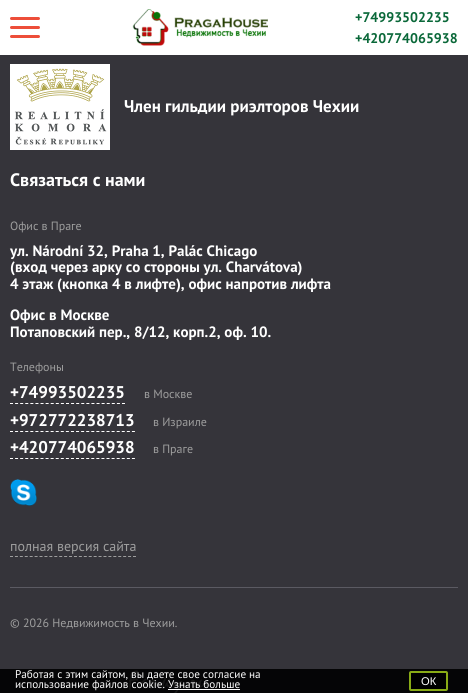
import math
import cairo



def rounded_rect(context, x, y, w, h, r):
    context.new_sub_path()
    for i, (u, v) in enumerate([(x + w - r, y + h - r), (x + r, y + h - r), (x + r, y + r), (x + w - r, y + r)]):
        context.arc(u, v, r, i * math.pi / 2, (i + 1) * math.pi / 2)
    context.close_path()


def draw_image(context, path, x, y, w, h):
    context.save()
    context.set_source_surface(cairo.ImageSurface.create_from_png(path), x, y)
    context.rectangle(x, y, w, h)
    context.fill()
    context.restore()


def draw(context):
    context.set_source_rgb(53 / 255, 52 / 255, 58 / 255)
    context.paint()
    context.set_source_rgb(1, 1, 1)
    context.rectangle(0, 0, 468, 55)
    context.fill()
    context.set_source_rgb(237 / 255, 78 / 255, 57 / 255)
    rounded_rect(context, 10, 26, 30, 3, 1.5)
    context.fill()
    rounded_rect(context, 10, 17, 30, 3, 1.5)
    context.fill()
    rounded_rect(context, 10, 35, 30, 3, 1.5)
    context.fill()
    draw_image(context, "images/1.png", 132, 9, 136, 37)
    context.set_source_rgb(5 / 255, 5 / 255, 6 / 255)
    context.rectangle(0, 669, 468, 24)
    context.fill()
    draw_image(context, "images/2.png", 10, 64, 100, 86)
    context.new_path()
    context.move_to(10, 403.5)
    context.line_to(125, 403.5)
    context.set_source_rgb(1, 1, 1)
    context.set_line_width(1)
    context.set_dash([3, 2.09])
    context.stroke()
    context.new_path()
    context.move_to(10, 431.5)
    context.line_to(135, 431.5)
    context.set_dash([3, 2.08])
    context.stroke()
    context.new_path()
    context.move_to(10, 458.5)
    context.line_to(135, 458.5)
    context.stroke()
    draw_image(context, "images/3.png", 10, 479, 27, 27)
    context.new_path()
    context.move_to(10, 556.5)
    context.line_to(136, 556.5)
    context.set_source_rgb(158 / 255, 158 / 255, 158 / 255)
    context.set_dash([3, 1.92])
    context.stroke()
    context.set_source_rgb(91 / 255, 90 / 255, 98 / 255)
    context.rectangle(10, 587, 448, 1)
    context.fill()
    draw_image(context, "images/4.png", 128, 670, 80, 23)
    context.set_source_rgb(1, 1, 1)
    context.rectangle(168, 689, 72, 1)
    context.fill()
    context.set_source_rgb(0, 0, 0)
    rounded_rect(context, 410, 672, 37, 18, 1)
    context.fill_preserve()
    context.set_source_rgb(137 / 255, 171 / 255, 22 / 255)
    context.set_line_width(2)
    context.set_dash([])
    context.stroke()
    context.select_font_face("PT Sans", cairo.FontSlant.NORMAL, cairo.FontWeight.BOLD)
    context.set_font_size(14)
    context.set_source_rgb(10 / 255, 104 / 255, 57 / 255)
    context.move_to(355, 22)
    context.show_text("+74993502235")
    context.move_to(355, 43)
    context.show_text("+420774065938")
    context.set_font_size(17)
    context.set_source_rgb(1, 1, 1)
    context.move_to(124, 112)
    context.show_text("Член гильдии риэлторов Чехии")
    context.set_font_size(18)
    context.move_to(10, 186)
    context.show_text("Связаться с нами")
    context.select_font_face("PT Sans")
    context.set_font_size(12)
    context.set_source_rgb(158 / 255, 158 / 255, 158 / 255)
    context.move_to(10, 230)
    context.show_text("Офис в Праге")
    context.select_font_face("PT Sans", cairo.FontSlant.NORMAL, cairo.FontWeight.BOLD)
    context.set_font_size(15)
    context.set_source_rgb(1, 1, 1)
    context.move_to(10, 256)
    context.show_text("ул. Národní 32, Praha 1, Palác Chicago")
    context.move_to(10, 272)
    context.show_text("(вход через арку со стороны ул. Charvátova)")
    context.move_to(10, 289)
    context.show_text("4 этаж (кнопка 4 в лифте), офис напротив лифта")
    context.move_to(10, 320)
    context.show_text("Офис в Москве")
    context.move_to(10, 337)
    context.show_text("Потаповский пер., 8/12, корп.2, оф. 10.")
    context.select_font_face("PT Sans")
    context.set_font_size(12)
    context.set_source_rgb(158 / 255, 158 / 255, 158 / 255)
    context.move_to(10, 371)
    context.show_text("Телефоны")
    context.select_font_face("PT Sans", cairo.FontSlant.NORMAL, cairo.FontWeight.BOLD)
    context.set_font_size(17)
    context.set_source_rgb(1, 1, 1)
    context.move_to(10, 398)
    context.show_text("+74993502235")
    context.select_font_face("PT Sans")
    context.set_font_size(12)
    context.set_source_rgb(158 / 255, 158 / 255, 158 / 255)
    context.move_to(144, 398)
    context.show_text("в Москве")
    context.select_font_face("PT Sans", cairo.FontSlant.NORMAL, cairo.FontWeight.BOLD)
    context.set_font_size(17)
    context.set_source_rgb(1, 1, 1)
    context.move_to(10, 426)
    context.show_text("+972772238713")
    context.select_font_face("PT Sans")
    context.set_font_size(12)
    context.set_source_rgb(158 / 255, 158 / 255, 158 / 255)
    context.move_to(153, 426)
    context.show_text("в Израиле")
    context.select_font_face("PT Sans", cairo.FontSlant.NORMAL, cairo.FontWeight.BOLD)
    context.set_font_size(17)
    context.set_source_rgb(1, 1, 1)
    context.move_to(10, 453)
    context.show_text("+420774065938")
    context.select_font_face("PT Sans")
    context.set_font_size(12)
    context.set_source_rgb(158 / 255, 158 / 255, 158 / 255)
    context.move_to(153, 453)
    context.show_text("в Праге")
    context.set_font_size(14)
    context.move_to(10, 551)
    context.show_text("полная версия сайта")
    context.set_font_size(12)
    context.move_to(10, 627)
    context.show_text("© 2026 Недвижимость в Чехии.")
    context.set_font_size(11.2)
    context.set_source_rgb(1, 1, 1)
    context.move_to(15, 678)
    context.show_text("Работая с этим сайтом, вы даете свое согласие на")
    context.move_to(15, 688)
    context.show_text("использование файлов cookie. Узнать больше")
    context.select_font_face("Liberation Sans")
    context.move_to(421, 685)
    context.show_text("ОК")


surface = cairo.ImageSurface(cairo.Format.RGB24, 468, 693)
context = cairo.Context(surface)
options = cairo.FontOptions()
options.set_hint_metrics(cairo.HintMetrics.OFF)
options.set_hint_style(cairo.HintStyle.NONE)
context.set_font_options(options)
context.set_miter_limit(4)
draw(context)
surface.write_to_png("out.png")
